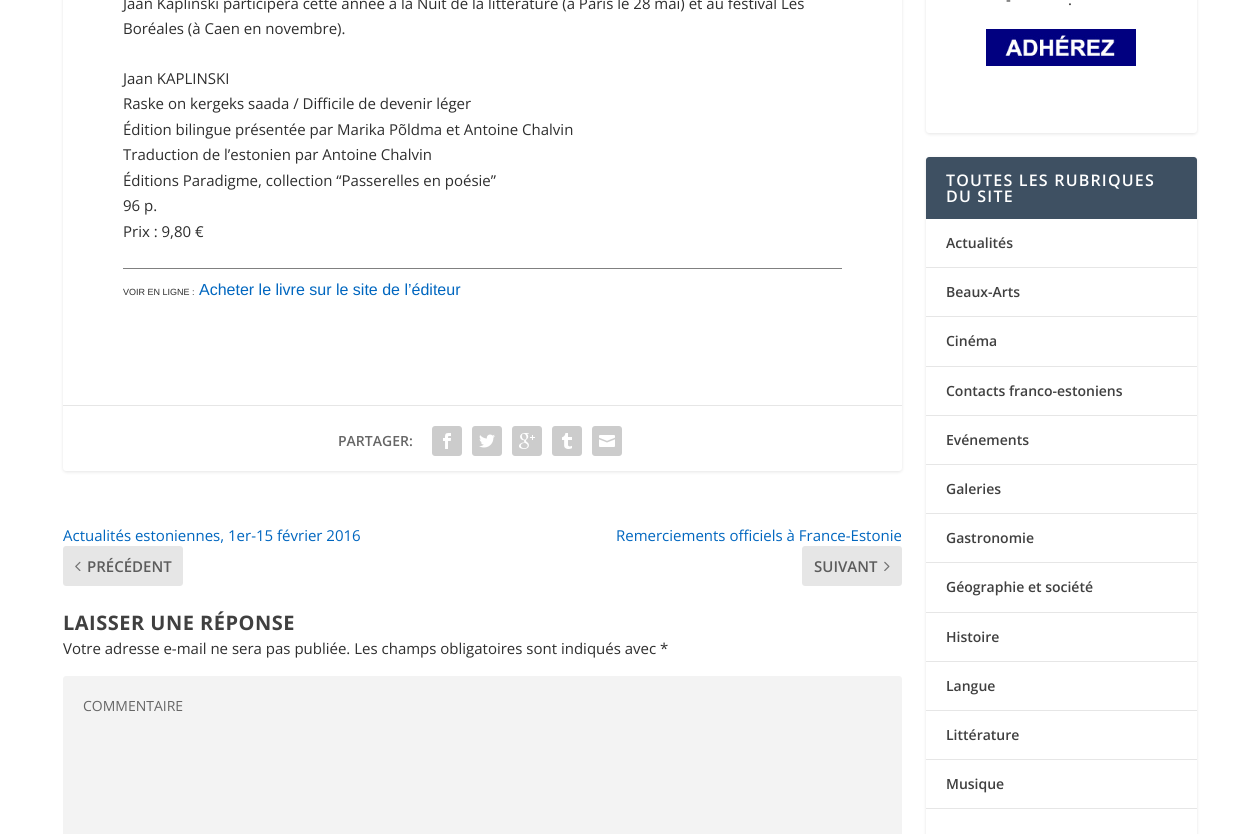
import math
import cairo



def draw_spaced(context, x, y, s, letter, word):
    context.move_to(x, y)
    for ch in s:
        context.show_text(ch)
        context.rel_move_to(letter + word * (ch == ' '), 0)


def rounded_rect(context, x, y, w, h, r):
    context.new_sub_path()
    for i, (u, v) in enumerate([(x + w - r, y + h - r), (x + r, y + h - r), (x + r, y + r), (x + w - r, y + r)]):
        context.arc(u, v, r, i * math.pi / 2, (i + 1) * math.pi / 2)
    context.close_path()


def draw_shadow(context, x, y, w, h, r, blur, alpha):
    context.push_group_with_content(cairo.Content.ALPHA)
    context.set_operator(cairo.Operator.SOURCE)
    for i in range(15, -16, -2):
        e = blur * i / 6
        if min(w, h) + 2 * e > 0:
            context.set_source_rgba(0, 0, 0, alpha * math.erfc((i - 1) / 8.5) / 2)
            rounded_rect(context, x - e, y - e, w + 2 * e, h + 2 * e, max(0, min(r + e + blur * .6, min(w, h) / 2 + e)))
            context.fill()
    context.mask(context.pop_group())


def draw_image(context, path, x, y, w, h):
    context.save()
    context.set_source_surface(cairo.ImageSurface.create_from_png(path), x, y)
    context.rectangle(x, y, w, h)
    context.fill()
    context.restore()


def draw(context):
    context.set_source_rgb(1, 1, 1)
    context.paint()
    context.set_source_rgb(0, 0, 0)
    draw_shadow(context, 63, -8, 839, 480, 3, 1.5, 0.1)
    context.set_source_rgb(1, 1, 1)
    rounded_rect(context, 63, -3, 839, 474, 3)
    context.fill()
    context.set_source_rgb(128 / 255, 128 / 255, 128 / 255)
    context.rectangle(123, 268, 719, 1)
    context.fill()
    context.set_source_rgb(230 / 255, 230 / 255, 230 / 255)
    context.rectangle(63, 405, 839, 1)
    context.fill()
    context.set_source_rgb(204 / 255, 204 / 255, 204 / 255)
    rounded_rect(context, 432, 426, 30, 30, 3)
    context.fill()
    draw_image(context, "images/1.png", 443, 433, 8, 16)
    rounded_rect(context, 472, 426, 30, 30, 3)
    context.fill()
    draw_image(context, "images/2.png", 479, 434, 16, 14)
    rounded_rect(context, 512, 426, 30, 30, 3)
    context.fill()
    draw_image(context, "images/3.png", 519, 433, 16, 16)
    rounded_rect(context, 552, 426, 30, 30, 3)
    context.fill()
    draw_image(context, "images/4.png", 562, 433, 10, 16)
    rounded_rect(context, 592, 426, 30, 30, 3)
    context.fill()
    draw_image(context, "images/5.png", 599, 435, 16, 12)
    context.set_source_rgb(230 / 255, 230 / 255, 230 / 255)
    rounded_rect(context, 63, 546, 120, 40, 3)
    context.fill()
    draw_image(context, "images/6.png", 75, 561, 6, 10)
    rounded_rect(context, 802, 546, 100, 40, 3)
    context.fill()
    draw_image(context, "images/7.png", 884, 561, 6, 10)
    context.set_source_rgb(243 / 255, 243 / 255, 243 / 255)
    rounded_rect(context, 63, 676, 839, 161, 3)
    context.fill()
    context.set_source_rgb(0, 0, 0)
    draw_shadow(context, 926, -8, 271, 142, 3, 1.5, 0.1)
    context.set_source_rgb(1, 1, 1)
    rounded_rect(context, 926, -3, 271, 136, 3)
    context.fill()
    draw_image(context, "images/8.png", 986, 29, 150, 37)
    context.set_source_rgb(0, 0, 0)
    draw_shadow(context, 926, 158, 271, 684, 3, 1.5, 0.1)
    context.set_source_rgb(1, 1, 1)
    rounded_rect(context, 926, 157, 271, 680, 3)
    context.fill()
    context.set_source_rgb(62 / 255, 80 / 255, 98 / 255)
    context.new_path()
    context.move_to(929, 157)
    context.line_to(1194, 157)
    context.curve_to(1195.5, 157, 1197, 158.5, 1197, 160)
    context.line_to(1197, 219)
    context.line_to(926, 219)
    context.line_to(926, 160)
    context.curve_to(926, 158.5, 927.5, 157, 929, 157)
    context.close_path()
    context.fill()
    context.set_source_rgb(230 / 255, 230 / 255, 230 / 255)
    context.rectangle(926, 267, 271, 1)
    context.fill()
    context.rectangle(926, 316, 271, 1)
    context.fill()
    context.rectangle(926, 366, 271, 1)
    context.fill()
    context.rectangle(926, 415, 271, 1)
    context.fill()
    context.rectangle(926, 464, 271, 1)
    context.fill()
    context.rectangle(926, 513, 271, 1)
    context.fill()
    context.rectangle(926, 562, 271, 1)
    context.fill()
    context.rectangle(926, 612, 271, 1)
    context.fill()
    context.rectangle(926, 661, 271, 1)
    context.fill()
    context.rectangle(926, 710, 271, 1)
    context.fill()
    context.rectangle(926, 759, 271, 1)
    context.fill()
    context.rectangle(926, 808, 271, 1)
    context.fill()
    context.select_font_face("Open Sans")
    context.set_font_size(15)
    context.set_source_rgb(46 / 255, 46 / 255, 46 / 255)
    context.move_to(123, 9)
    context.show_text("Jaan Kaplinski participera cette année à la Nuit de la littérature (à Paris le 28 mai) et au festival Les")
    context.move_to(123, 34)
    context.show_text("Boréales (à Caen en novembre).")
    context.move_to(123, 84)
    context.show_text("Jaan KAPLINSKI")
    context.move_to(123, 109)
    context.show_text("Raske on kergeks saada / Difficile de devenir léger")
    context.move_to(123, 135)
    context.show_text("Édition bilingue présentée par Marika Põldma et Antoine Chalvin")
    context.move_to(123, 160)
    context.show_text("Traduction de l’estonien par Antoine Chalvin")
    context.move_to(123, 186)
    context.show_text("Éditions Paradigme, collection “Passerelles en poésie”")
    context.move_to(123, 211)
    context.show_text("96 p.")
    context.move_to(123, 237)
    context.show_text("Prix : 9,80 €")
    context.select_font_face("Liberation Sans")
    context.set_font_size(9)
    context.move_to(123, 295)
    context.show_text("VOIR EN LIGNE :")
    context.set_font_size(16)
    context.set_source_rgb(0, 102 / 255, 191 / 255)
    context.move_to(199, 295)
    context.show_text("Acheter le livre sur le site de l’éditeur")
    context.select_font_face("Open Sans SemiBold")
    context.set_font_size(14)
    context.set_source_rgb(102 / 255, 102 / 255, 102 / 255)
    context.move_to(338, 446)
    context.show_text("PARTAGER:")
    context.select_font_face("Open Sans")
    context.set_font_size(15)
    context.set_source_rgb(0, 102 / 255, 191 / 255)
    context.move_to(63, 541)
    context.show_text("Actualités estoniennes, 1er-15 février 2016")
    context.select_font_face("Open Sans SemiBold")
    context.set_source_rgb(92 / 255, 92 / 255, 92 / 255)
    context.move_to(87, 572)
    context.show_text("PRÉCÉDENT")
    context.select_font_face("Open Sans")
    context.set_source_rgb(0, 102 / 255, 191 / 255)
    context.move_to(616, 541)
    context.show_text("Remerciements officiels à France-Estonie")
    context.select_font_face("Open Sans SemiBold")
    context.set_source_rgb(92 / 255, 92 / 255, 92 / 255)
    context.move_to(814, 572)
    context.show_text("SUIVANT")
    context.select_font_face("Open Sans", cairo.FontSlant.NORMAL, cairo.FontWeight.BOLD)
    context.set_font_size(20)
    context.set_source_rgb(64 / 255, 64 / 255, 64 / 255)
    draw_spaced(context, 63, 630, "LAISSER UNE RÉPONSE", 0.5, 0)
    context.select_font_face("Open Sans")
    context.set_font_size(15)
    context.set_source_rgb(46 / 255, 46 / 255, 46 / 255)
    context.move_to(63, 654)
    context.show_text("Votre adresse e-mail ne sera pas publiée. Les champs obligatoires sont indiqués avec *")
    context.set_font_size(14)
    context.set_source_rgb(102 / 255, 102 / 255, 102 / 255)
    context.move_to(83, 711)
    context.show_text("COMMENTAIRE")
    context.set_font_size(15)
    context.set_source_rgb(46 / 255, 46 / 255, 46 / 255)
    context.move_to(1006, 5)
    context.show_text("-")
    context.move_to(1068, 5)
    context.show_text(".")
    context.select_font_face("Open Sans SemiBold")
    context.set_font_size(16)
    context.set_source_rgb(1, 1, 1)
    draw_spaced(context, 946, 186, "TOUTES LES RUBRIQUES", 1.2, 0)
    draw_spaced(context, 946, 202, "DU SITE", 1.2, 0)
    context.set_font_size(14)
    context.set_source_rgb(64 / 255, 64 / 255, 64 / 255)
    context.move_to(946, 248)
    context.show_text("Actualités")
    context.move_to(946, 297)
    context.show_text("Beaux-Arts")
    context.move_to(946, 346)
    context.show_text("Cinéma")
    context.move_to(946, 396)
    context.show_text("Contacts franco-estoniens")
    context.move_to(946, 445)
    context.show_text("Evénements")
    context.move_to(946, 494)
    context.show_text("Galeries")
    context.move_to(946, 543)
    context.show_text("Gastronomie")
    context.move_to(946, 592)
    context.show_text("Géographie et société")
    context.move_to(946, 642)
    context.show_text("Histoire")
    context.move_to(946, 691)
    context.show_text("Langue")
    context.move_to(946, 740)
    context.show_text("Littérature")
    context.move_to(946, 789)
    context.show_text("Musique")


surface = cairo.ImageSurface(cairo.Format.RGB24, 1260, 834)
context = cairo.Context(surface)
options = cairo.FontOptions()
options.set_hint_metrics(cairo.HintMetrics.OFF)
options.set_hint_style(cairo.HintStyle.NONE)
context.set_font_options(options)
context.set_miter_limit(4)
draw(context)
surface.write_to_png("out.png")
